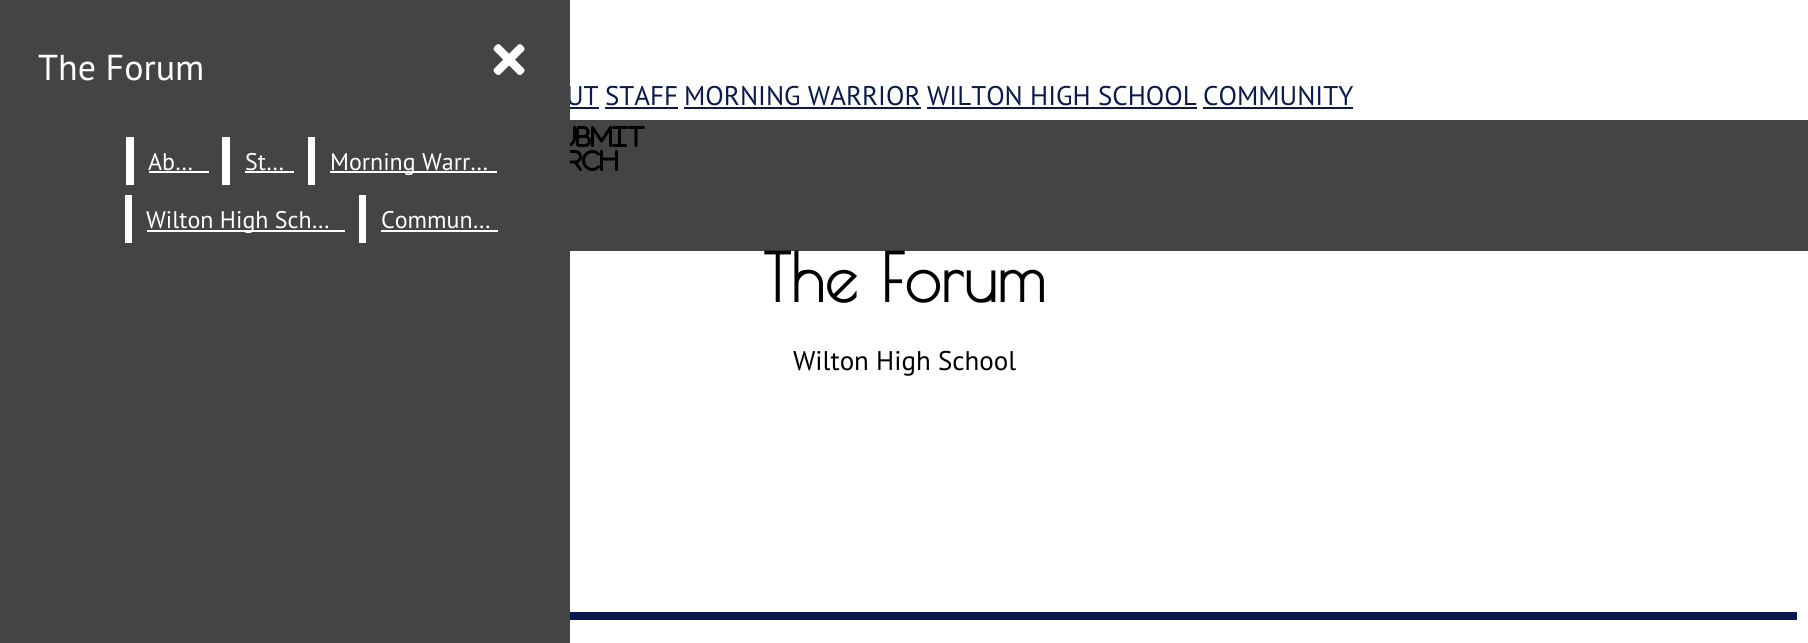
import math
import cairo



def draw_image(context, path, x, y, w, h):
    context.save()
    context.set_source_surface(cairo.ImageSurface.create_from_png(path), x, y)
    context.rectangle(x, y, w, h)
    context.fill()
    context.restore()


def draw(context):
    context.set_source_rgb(1, 1, 1)
    context.paint()
    context.set_source_rgb(68 / 255, 68 / 255, 68 / 255)
    context.rectangle(570, 120, 1238, 131)
    context.fill()
    draw_image(context, "images/2.png", 570, 126, 75, 21)
    draw_image(context, "images/3.png", 570, 150, 48, 21)
    context.set_source_rgb(10 / 255, 26 / 255, 77 / 255)
    context.rectangle(570, 107, 29, 2)
    context.fill()
    context.rectangle(605, 107, 73, 2)
    context.fill()
    context.rectangle(684, 107, 237, 2)
    context.fill()
    context.rectangle(927, 107, 270, 2)
    context.fill()
    context.rectangle(1203, 107, 150, 2)
    context.fill()
    context.rectangle(570, 612, 1227, 8)
    context.fill()
    context.select_font_face("PT Sans")
    context.set_font_size(27)
    context.move_to(566, 105)
    context.show_text("UT")
    context.set_source_rgb(68 / 255, 68 / 255, 68 / 255)
    context.rectangle(0, 0, 570, 643)
    context.fill()
    context.set_font_size(24)
    context.set_source_rgb(1, 1, 1)
    context.move_to(381, 228)
    context.show_text("Commun…")
    context.rectangle(381, 230, 117, 2)
    context.fill()
    context.rectangle(147, 230, 198, 2)
    context.fill()
    context.move_to(146, 228)
    context.show_text("Wilton High Sch…")
    context.rectangle(330, 171, 167, 2)
    context.fill()
    context.move_to(330, 170)
    context.show_text("Morning Warr…")
    context.move_to(245, 170)
    context.show_text("St…")
    context.rectangle(245, 171, 49, 2)
    context.fill()
    context.move_to(148, 170)
    context.show_text("Ab…")
    context.rectangle(149, 171, 60, 2)
    context.fill()
    context.rectangle(359, 195, 7, 48)
    context.fill()
    context.rectangle(125, 195, 7, 48)
    context.fill()
    context.rectangle(308, 137, 7, 48)
    context.fill()
    context.rectangle(222, 137, 8, 48)
    context.fill()
    context.rectangle(126, 137, 8, 48)
    context.fill()
    context.set_font_size(36)
    context.move_to(38, 80)
    context.show_text("The Forum")
    draw_image(context, "images/1.png", 493, 44, 32, 32)
    context.set_font_size(27)
    context.set_source_rgb(10 / 255, 26 / 255, 77 / 255)
    context.move_to(605, 105)
    context.show_text("STAFF")
    context.move_to(684, 105)
    context.show_text("MORNING WARRIOR")
    context.move_to(927, 105)
    context.show_text("WILTON HIGH SCHOOL")
    context.move_to(1203, 105)
    context.show_text("COMMUNITY")
    context.select_font_face("Poiret One", cairo.FontSlant.NORMAL, cairo.FontWeight.BOLD)
    context.set_font_size(66)
    context.set_source_rgb(0, 0, 0)
    context.move_to(763, 302)
    context.show_text("The Forum")
    context.select_font_face("PT Sans")
    context.set_font_size(27)
    context.move_to(793, 370)
    context.show_text("Wilton High School")


surface = cairo.ImageSurface(cairo.Format.RGB24, 1808, 643)
context = cairo.Context(surface)
options = cairo.FontOptions()
options.set_hint_metrics(cairo.HintMetrics.OFF)
options.set_hint_style(cairo.HintStyle.NONE)
context.set_font_options(options)
context.set_miter_limit(4)
draw(context)
surface.write_to_png("out.png")
